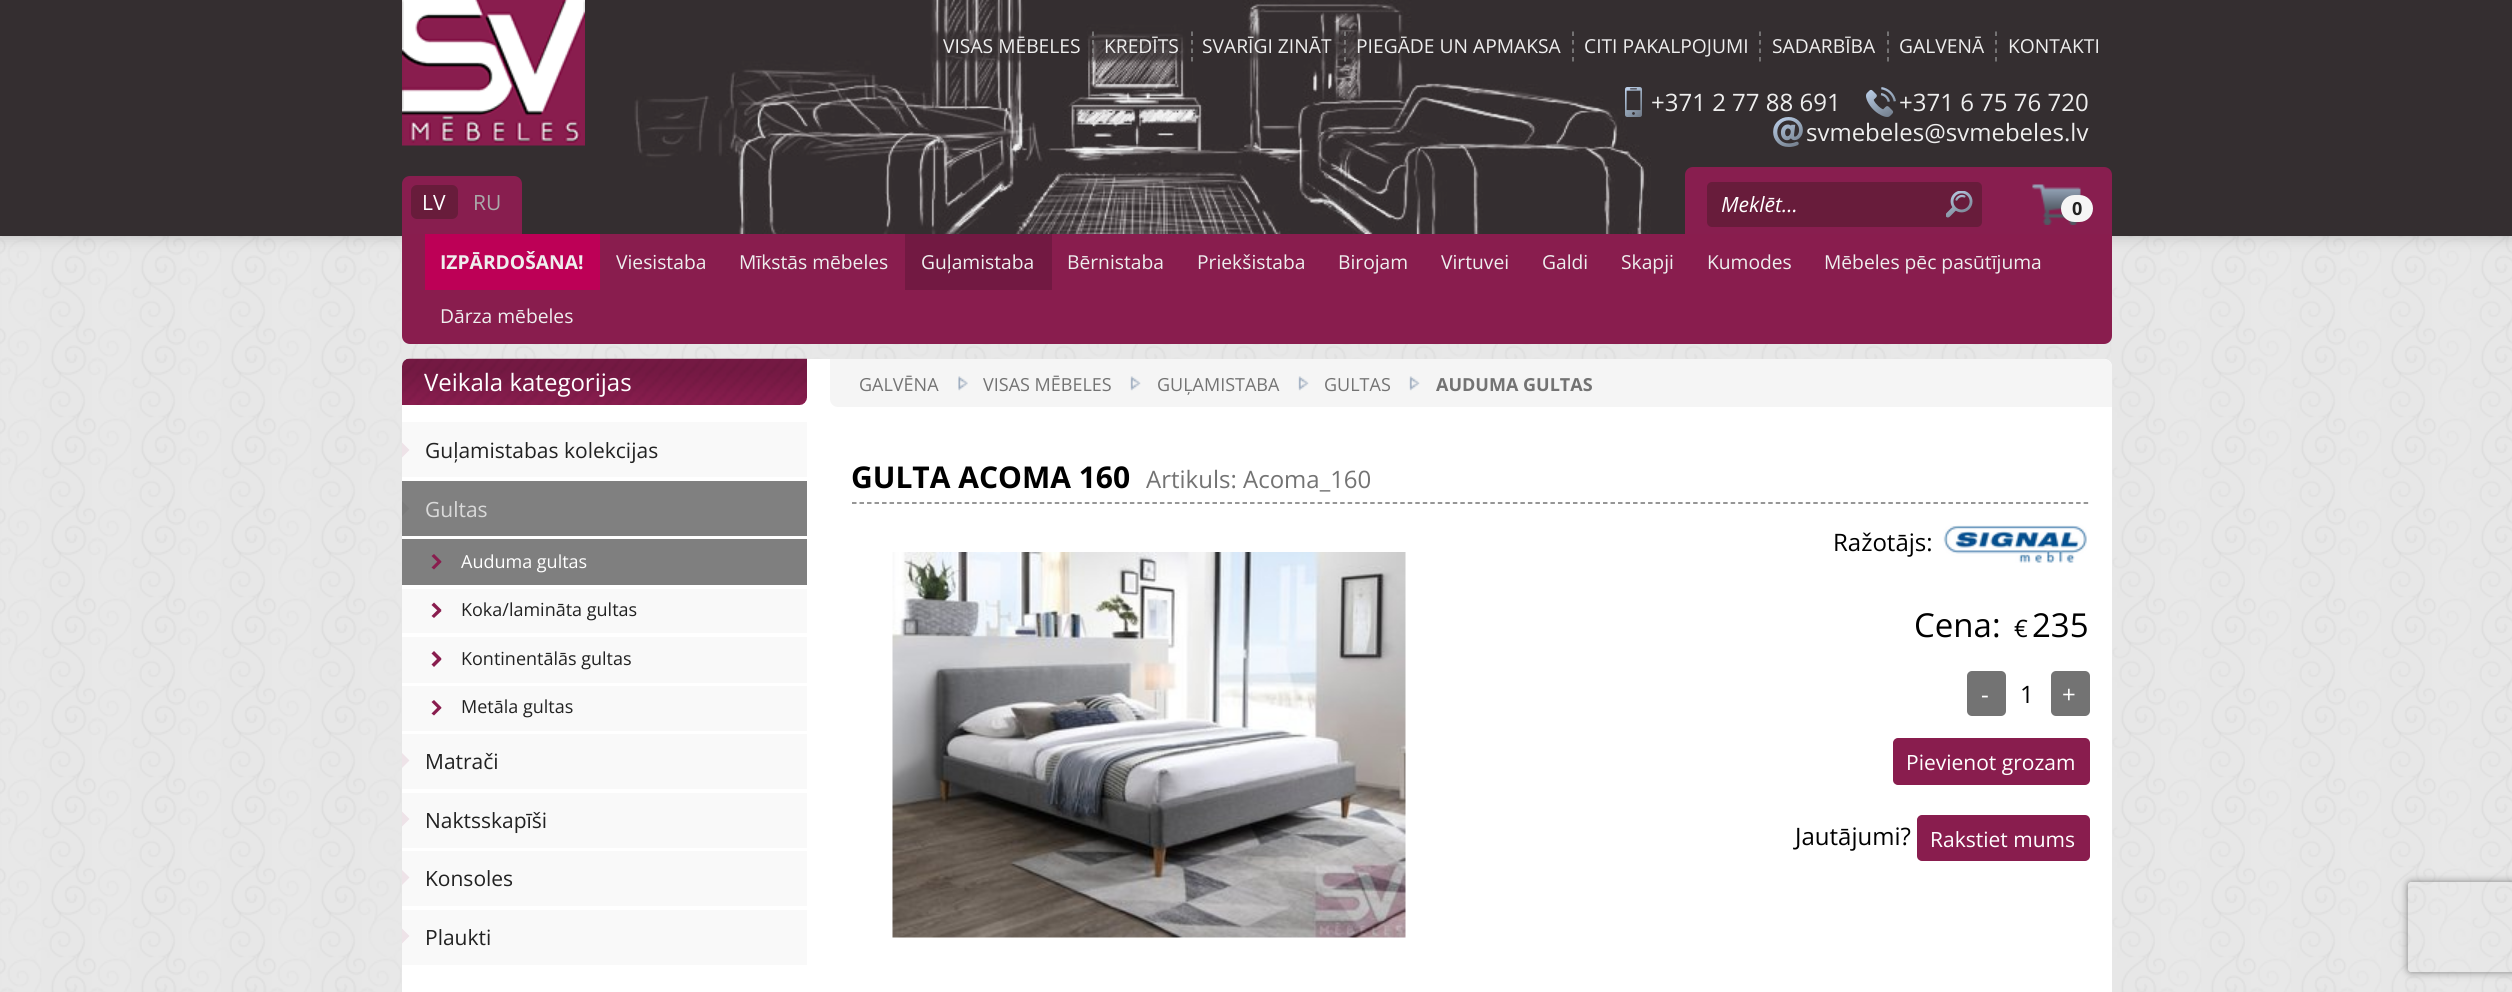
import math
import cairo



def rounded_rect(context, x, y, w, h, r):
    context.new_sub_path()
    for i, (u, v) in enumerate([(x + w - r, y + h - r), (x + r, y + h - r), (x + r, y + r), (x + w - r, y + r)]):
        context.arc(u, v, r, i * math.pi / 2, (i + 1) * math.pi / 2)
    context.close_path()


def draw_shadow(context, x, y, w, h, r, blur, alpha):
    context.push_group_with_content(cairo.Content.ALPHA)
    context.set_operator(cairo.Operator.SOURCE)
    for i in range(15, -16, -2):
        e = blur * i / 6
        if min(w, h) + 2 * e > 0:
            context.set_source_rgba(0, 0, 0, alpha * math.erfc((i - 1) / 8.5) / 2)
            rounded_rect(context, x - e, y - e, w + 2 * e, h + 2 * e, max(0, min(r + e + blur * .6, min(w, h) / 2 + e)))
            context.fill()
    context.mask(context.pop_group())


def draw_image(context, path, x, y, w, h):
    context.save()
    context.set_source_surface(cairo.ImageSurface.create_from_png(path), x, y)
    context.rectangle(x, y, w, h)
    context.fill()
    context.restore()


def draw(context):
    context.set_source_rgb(1, 1, 1)
    context.paint()
    draw_image(context, "images/1.png", 0, 236, 2512, 756)
    context.set_source_rgb(0, 0, 0)
    draw_shadow(context, 0, 0, 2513, 236, 0, 7.5, 0.2)
    context.set_source_rgb(52 / 255, 46 / 255, 48 / 255)
    context.rectangle(0, 0, 2512, 236)
    context.fill()
    draw_image(context, "images/2.png", 634, 0, 1017, 234)
    draw_image(context, "images/3.png", 402, 0, 183, 146)
    context.new_path()
    context.move_to(1093, 31.5)
    context.line_to(1093, 61.5)
    context.set_source_rgb(137 / 255, 137 / 255, 137 / 255)
    context.set_line_width(1.5)
    context.set_dash([4.5, 4])
    context.stroke()
    context.new_path()
    context.move_to(1192, 31.5)
    context.line_to(1192, 61.5)
    context.stroke()
    context.new_path()
    context.move_to(1345, 31.5)
    context.line_to(1345, 61.5)
    context.stroke()
    context.new_path()
    context.move_to(1573, 31.5)
    context.line_to(1573, 61.5)
    context.stroke()
    context.new_path()
    context.move_to(1760, 31.5)
    context.line_to(1760, 61.5)
    context.stroke()
    context.new_path()
    context.move_to(1888, 31.5)
    context.line_to(1888, 61.5)
    context.stroke()
    context.new_path()
    context.move_to(1996, 31.5)
    context.line_to(1996, 61.5)
    context.stroke()
    draw_image(context, "images/4.png", 1625, 87, 17, 30)
    draw_image(context, "images/5.png", 1866, 87, 30, 30)
    draw_image(context, "images/6.png", 1773, 117, 30, 30)
    context.set_source_rgb(136 / 255, 30 / 255, 79 / 255)
    context.new_path()
    context.move_to(410, 176)
    context.line_to(514, 176)
    context.curve_to(518.5, 176, 522, 179.5, 522, 184)
    context.line_to(522, 234)
    context.line_to(402, 234)
    context.line_to(402, 184)
    context.curve_to(402, 179.5, 405.5, 176, 410, 176)
    context.close_path()
    context.fill()
    context.set_source_rgb(104 / 255, 28 / 255, 59 / 255)
    rounded_rect(context, 411, 185, 47, 34, 6)
    context.fill()
    context.set_source_rgb(136 / 255, 30 / 255, 79 / 255)
    context.new_path()
    context.move_to(1693, 167)
    context.line_to(2104, 167)
    context.curve_to(2108.5, 167, 2112, 170.5, 2112, 175)
    context.line_to(2112, 234)
    context.line_to(1685, 234)
    context.line_to(1685, 175)
    context.curve_to(1685, 170.5, 1688.5, 167, 1693, 167)
    context.close_path()
    context.fill()
    context.set_source_rgb(104 / 255, 28 / 255, 59 / 255)
    rounded_rect(context, 1707, 182, 275, 45, 5)
    context.fill()
    draw_image(context, "images/7.png", 1946, 191, 27, 27)
    draw_image(context, "images/8.png", 2032, 184, 49, 41)
    context.set_source_rgb(245 / 255, 245 / 255, 245 / 255)
    rounded_rect(context, 2061, 195, 32, 27, 13.5)
    context.fill()
    context.set_source_rgb(137 / 255, 29 / 255, 78 / 255)
    context.new_path()
    context.move_to(402, 234)
    context.line_to(2112, 234)
    context.line_to(2112, 336)
    context.curve_to(2112, 340.5, 2108.5, 344, 2104, 344)
    context.line_to(410, 344)
    context.curve_to(405.5, 344, 402, 340.5, 402, 336)
    context.close_path()
    context.fill()
    context.set_source_rgb(189 / 255, 0, 86 / 255)
    context.rectangle(425, 234, 175, 56)
    context.fill()
    context.set_source_rgb(114 / 255, 25 / 255, 66 / 255)
    context.rectangle(905, 234, 147, 56)
    context.fill()
    context.set_source_rgb(1, 1, 1)
    context.new_path()
    context.move_to(410, 359)
    context.line_to(2104, 359)
    context.curve_to(2108.5, 359, 2112, 362.5, 2112, 367)
    context.line_to(2112, 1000)
    context.line_to(402, 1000)
    context.line_to(402, 367)
    context.curve_to(402, 362.5, 405.5, 359, 410, 359)
    context.close_path()
    context.fill()
    draw_image(context, "images/9.png", 402, 358, 405, 47)
    context.set_source_rgb(249 / 255, 249 / 255, 249 / 255)
    context.rectangle(402, 422, 405, 55)
    context.fill()
    context.set_source_rgb(238 / 255, 227 / 255, 232 / 255)
    context.new_path()
    context.move_to(402, 457.5)
    context.line_to(402, 442.5)
    context.line_to(409.5, 450)
    context.close_path()
    context.fill()
    context.set_source_rgb(128 / 255, 128 / 255, 128 / 255)
    context.rectangle(402, 481, 405, 55)
    context.fill()
    context.set_source_rgb(122 / 255, 122 / 255, 122 / 255)
    context.new_path()
    context.move_to(402, 516)
    context.line_to(402, 501)
    context.line_to(409.5, 508.5)
    context.close_path()
    context.fill()
    context.set_source_rgb(127 / 255, 127 / 255, 127 / 255)
    context.rectangle(402, 539, 405, 46)
    context.fill()
    context.set_source_rgb(137 / 255, 29 / 255, 78 / 255)
    context.new_path()
    context.move_to(434, 554)
    context.line_to(441.5, 561.5)
    context.line_to(439, 563.5)
    context.line_to(431.5, 556)
    context.close_path()
    context.fill()
    context.new_path()
    context.move_to(431.5, 567.5)
    context.line_to(439, 560)
    context.line_to(441.5, 562)
    context.line_to(434, 569.5)
    context.close_path()
    context.fill()
    context.set_source_rgb(249 / 255, 249 / 255, 249 / 255)
    context.rectangle(402, 589, 405, 44)
    context.fill()
    context.set_source_rgb(137 / 255, 29 / 255, 78 / 255)
    context.new_path()
    context.move_to(434, 602.5)
    context.line_to(441.5, 610)
    context.line_to(439, 612)
    context.line_to(431.5, 605)
    context.close_path()
    context.fill()
    context.new_path()
    context.move_to(431.5, 616)
    context.line_to(439, 608.5)
    context.line_to(441.5, 611)
    context.line_to(434, 618)
    context.close_path()
    context.fill()
    context.set_source_rgb(249 / 255, 249 / 255, 249 / 255)
    context.rectangle(402, 637, 405, 46)
    context.fill()
    context.set_source_rgb(137 / 255, 29 / 255, 78 / 255)
    context.new_path()
    context.move_to(434, 651)
    context.line_to(441.5, 658.5)
    context.line_to(439, 661)
    context.line_to(431.5, 653.5)
    context.close_path()
    context.fill()
    context.new_path()
    context.move_to(431.5, 664.5)
    context.line_to(439, 657)
    context.line_to(441.5, 659.5)
    context.line_to(434, 667)
    context.close_path()
    context.fill()
    context.set_source_rgb(249 / 255, 249 / 255, 249 / 255)
    context.rectangle(402, 686, 405, 45)
    context.fill()
    context.set_source_rgb(137 / 255, 29 / 255, 78 / 255)
    context.new_path()
    context.move_to(434, 700)
    context.line_to(441.5, 707.5)
    context.line_to(439, 709.5)
    context.line_to(431.5, 702)
    context.close_path()
    context.fill()
    context.new_path()
    context.move_to(431.5, 713.5)
    context.line_to(439, 706)
    context.line_to(441.5, 708)
    context.line_to(434, 715.5)
    context.close_path()
    context.fill()
    context.set_source_rgb(249 / 255, 249 / 255, 249 / 255)
    context.rectangle(402, 734, 405, 55)
    context.fill()
    context.set_source_rgb(238 / 255, 227 / 255, 232 / 255)
    context.new_path()
    context.move_to(402, 768)
    context.line_to(402, 753)
    context.line_to(409.5, 760.5)
    context.close_path()
    context.fill()
    context.set_source_rgb(249 / 255, 249 / 255, 249 / 255)
    context.rectangle(402, 793, 405, 55)
    context.fill()
    context.set_source_rgb(238 / 255, 227 / 255, 232 / 255)
    context.new_path()
    context.move_to(402, 826.5)
    context.line_to(402, 811.5)
    context.line_to(409.5, 819)
    context.close_path()
    context.fill()
    context.set_source_rgb(249 / 255, 249 / 255, 249 / 255)
    context.rectangle(402, 851, 405, 55)
    context.fill()
    context.set_source_rgb(238 / 255, 227 / 255, 232 / 255)
    context.new_path()
    context.move_to(402, 885)
    context.line_to(402, 870)
    context.line_to(409.5, 877.5)
    context.close_path()
    context.fill()
    context.set_source_rgb(249 / 255, 249 / 255, 249 / 255)
    context.rectangle(402, 910, 405, 55)
    context.fill()
    context.set_source_rgb(238 / 255, 227 / 255, 232 / 255)
    context.new_path()
    context.move_to(402, 943.5)
    context.line_to(402, 928.5)
    context.line_to(409.5, 936)
    context.close_path()
    context.fill()
    context.set_source_rgb(245 / 255, 245 / 255, 245 / 255)
    context.new_path()
    context.move_to(830, 359)
    context.line_to(2104, 359)
    context.curve_to(2108.5, 359, 2112, 362.5, 2112, 367)
    context.line_to(2112, 407)
    context.line_to(838, 407)
    context.curve_to(833.5, 407, 830, 403.5, 830, 399)
    context.close_path()
    context.fill()
    draw_image(context, "images/10.png", 958, 376, 10, 15)
    draw_image(context, "images/11.png", 1130, 376, 11, 15)
    draw_image(context, "images/11.png", 1298, 376, 11, 15)
    draw_image(context, "images/11.png", 1409, 376, 11, 15)
    context.new_path()
    context.move_to(852, 503)
    context.line_to(2089.5, 503)
    context.set_source_rgb(116 / 255, 116 / 255, 116 / 255)
    context.set_dash([4.5, 3.01])
    context.stroke()
    draw_image(context, "images/12.png", 892, 552, 514, 386)
    draw_image(context, "images/13.png", 1943, 525, 144, 38)
    context.set_source_rgb(115 / 255, 115 / 255, 115 / 255)
    rounded_rect(context, 1967, 671, 39, 45, 5)
    context.fill()
    rounded_rect(context, 2051, 671, 39, 45, 5)
    context.fill()
    context.set_source_rgb(137 / 255, 29 / 255, 78 / 255)
    rounded_rect(context, 1894, 739, 195, 45, 4)
    context.fill_preserve()
    context.set_line_width(2)
    context.set_dash([])
    context.stroke()
    rounded_rect(context, 1918, 816, 171, 44, 4)
    context.fill_preserve()
    context.stroke()
    context.save()
    context.set_fill_rule(cairo.FillRule.EVEN_ODD)
    context.new_path()
    context.move_to(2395, 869)
    context.line_to(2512, 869)
    context.line_to(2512, 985)
    context.line_to(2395, 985)
    context.close_path()
    context.move_to(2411, 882)
    context.line_to(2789, 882)
    context.curve_to(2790.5, 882, 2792, 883.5, 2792, 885)
    context.line_to(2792, 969)
    context.curve_to(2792, 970.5, 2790.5, 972, 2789, 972)
    context.line_to(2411, 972)
    context.curve_to(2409.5, 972, 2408, 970.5, 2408, 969)
    context.line_to(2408, 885)
    context.curve_to(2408, 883.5, 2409.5, 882, 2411, 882)
    context.close_path()
    context.clip()
    context.set_source_rgb(128 / 255, 128 / 255, 128 / 255)
    draw_shadow(context, 2408, 882, 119, 90, 3, 4, 1)
    context.restore()
    context.select_font_face("Open Sans")
    context.set_font_size(19.25)
    context.set_source_rgb(238 / 255, 238 / 255, 238 / 255)
    context.move_to(943, 53)
    context.show_text("VISAS MĒBELES")
    context.move_to(1104, 53)
    context.show_text("KREDĪTS")
    context.move_to(1202, 53)
    context.show_text("SVARĪGI ZINĀT")
    context.move_to(1356, 53)
    context.show_text("PIEGĀDE UN APMAKSA")
    context.move_to(1584, 53)
    context.show_text("CITI PAKALPOJUMI")
    context.move_to(1772, 53)
    context.show_text("SADARBĪBA")
    context.move_to(1899, 53)
    context.show_text("GALVENĀ")
    context.move_to(2008, 53)
    context.show_text("KONTAKTI")
    context.set_font_size(24)
    context.move_to(1651, 111)
    context.show_text("+371 2 77 88 691")
    context.move_to(1899, 111)
    context.show_text("+371 6 75 76 720")
    context.move_to(1806, 141)
    context.show_text("svmebeles@svmebeles.lv")
    context.set_font_size(21)
    context.set_source_rgb(1, 1, 1)
    context.move_to(422, 210)
    context.show_text("LV")
    context.set_source_rgb(170 / 255, 170 / 255, 170 / 255)
    context.move_to(473, 210)
    context.show_text("RU")
    context.select_font_face("Open Sans", cairo.FontSlant.ITALIC)
    context.set_source_rgb(1, 1, 1)
    context.move_to(1721, 212)
    context.show_text("Meklēt...")
    context.select_font_face("Open Sans", cairo.FontSlant.NORMAL, cairo.FontWeight.BOLD)
    context.set_font_size(18)
    context.set_source_rgb(34 / 255, 34 / 255, 34 / 255)
    context.move_to(2072, 215)
    context.show_text("0")
    context.set_font_size(19.25)
    context.set_source_rgb(238 / 255, 238 / 255, 238 / 255)
    context.move_to(440, 269)
    context.show_text("IZPĀRDOŠANA!")
    context.select_font_face("Open Sans")
    context.move_to(616, 269)
    context.show_text("Viesistaba")
    context.move_to(739, 269)
    context.show_text("Mīkstās mēbeles")
    context.move_to(921, 269)
    context.show_text("Guļamistaba")
    context.move_to(1067, 269)
    context.show_text("Bērnistaba")
    context.move_to(1197, 269)
    context.show_text("Priekšistaba")
    context.move_to(1338, 269)
    context.show_text("Birojam")
    context.move_to(1441, 269)
    context.show_text("Virtuvei")
    context.move_to(1542, 269)
    context.show_text("Galdi")
    context.move_to(1621, 269)
    context.show_text("Skapji")
    context.move_to(1707, 269)
    context.show_text("Kumodes")
    context.move_to(1824, 269)
    context.show_text("Mēbeles pēc pasūtījuma")
    context.move_to(440, 323)
    context.show_text("Dārza mēbeles")
    context.set_font_size(24)
    context.set_source_rgb(1, 1, 1)
    context.move_to(424, 391)
    context.show_text("Veikala kategorijas")
    context.set_font_size(21)
    context.set_source_rgb(34 / 255, 34 / 255, 34 / 255)
    context.move_to(425, 458)
    context.show_text("Guļamistabas kolekcijas")
    context.set_source_rgb(217 / 255, 217 / 255, 217 / 255)
    context.move_to(425, 517)
    context.show_text("Gultas")
    context.set_font_size(18)
    context.set_source_rgb(1, 1, 1)
    context.move_to(461, 568)
    context.show_text("Auduma gultas")
    context.set_source_rgb(34 / 255, 34 / 255, 34 / 255)
    context.move_to(461, 616)
    context.show_text("Koka/lamināta gultas")
    context.move_to(461, 665)
    context.show_text("Kontinentālās gultas")
    context.move_to(461, 713)
    context.show_text("Metāla gultas")
    context.set_font_size(21)
    context.move_to(425, 769)
    context.show_text("Matrači")
    context.move_to(425, 828)
    context.show_text("Naktsskapīši")
    context.move_to(425, 886)
    context.show_text("Konsoles")
    context.move_to(425, 945)
    context.show_text("Plaukti")
    context.set_font_size(18)
    context.set_source_rgb(115 / 255, 115 / 255, 115 / 255)
    context.move_to(859, 391)
    context.show_text("GALVĒNA")
    context.move_to(983, 391)
    context.show_text("VISAS MĒBELES")
    context.move_to(1157, 391)
    context.show_text("GUĻAMISTABA")
    context.move_to(1324, 391)
    context.show_text("GULTAS")
    context.select_font_face("Open Sans", cairo.FontSlant.NORMAL, cairo.FontWeight.BOLD)
    context.move_to(1436, 391)
    context.show_text("AUDUMA GULTAS")
    context.set_font_size(30)
    context.set_source_rgb(0, 0, 0)
    context.move_to(851, 488)
    context.show_text("GULTA ACOMA 160")
    context.select_font_face("Open Sans")
    context.set_font_size(24)
    context.set_source_rgb(115 / 255, 115 / 255, 115 / 255)
    context.move_to(1146, 488)
    context.show_text("Artikuls: Acoma_160")
    context.set_source_rgb(0, 0, 0)
    context.move_to(1833, 551)
    context.show_text("Ražotājs:")
    context.set_font_size(33)
    context.move_to(1914, 637)
    context.show_text("Cena:")
    context.set_font_size(24)
    context.move_to(2014, 637)
    context.show_text("€")
    context.set_font_size(33)
    context.move_to(2032, 637)
    context.show_text("235")
    context.set_font_size(24)
    context.set_source_rgb(1, 1, 1)
    context.move_to(1981, 703)
    context.show_text("-")
    context.set_source_rgb(0, 0, 0)
    context.move_to(2020, 703)
    context.show_text("1")
    context.set_source_rgb(1, 1, 1)
    context.move_to(2062, 703)
    context.show_text("+")
    context.set_font_size(21)
    context.move_to(1906, 770)
    context.show_text("Pievienot grozam")
    context.set_font_size(24)
    context.set_source_rgb(0, 0, 0)
    context.move_to(1795, 845)
    context.show_text("Jautājumi?")
    context.set_font_size(21)
    context.set_source_rgb(1, 1, 1)
    context.move_to(1930, 847)
    context.show_text("Rakstiet mums")


surface = cairo.ImageSurface(cairo.Format.RGB24, 2512, 992)
context = cairo.Context(surface)
options = cairo.FontOptions()
options.set_hint_metrics(cairo.HintMetrics.OFF)
options.set_hint_style(cairo.HintStyle.NONE)
context.set_font_options(options)
context.set_miter_limit(4)
draw(context)
surface.write_to_png("out.png")
